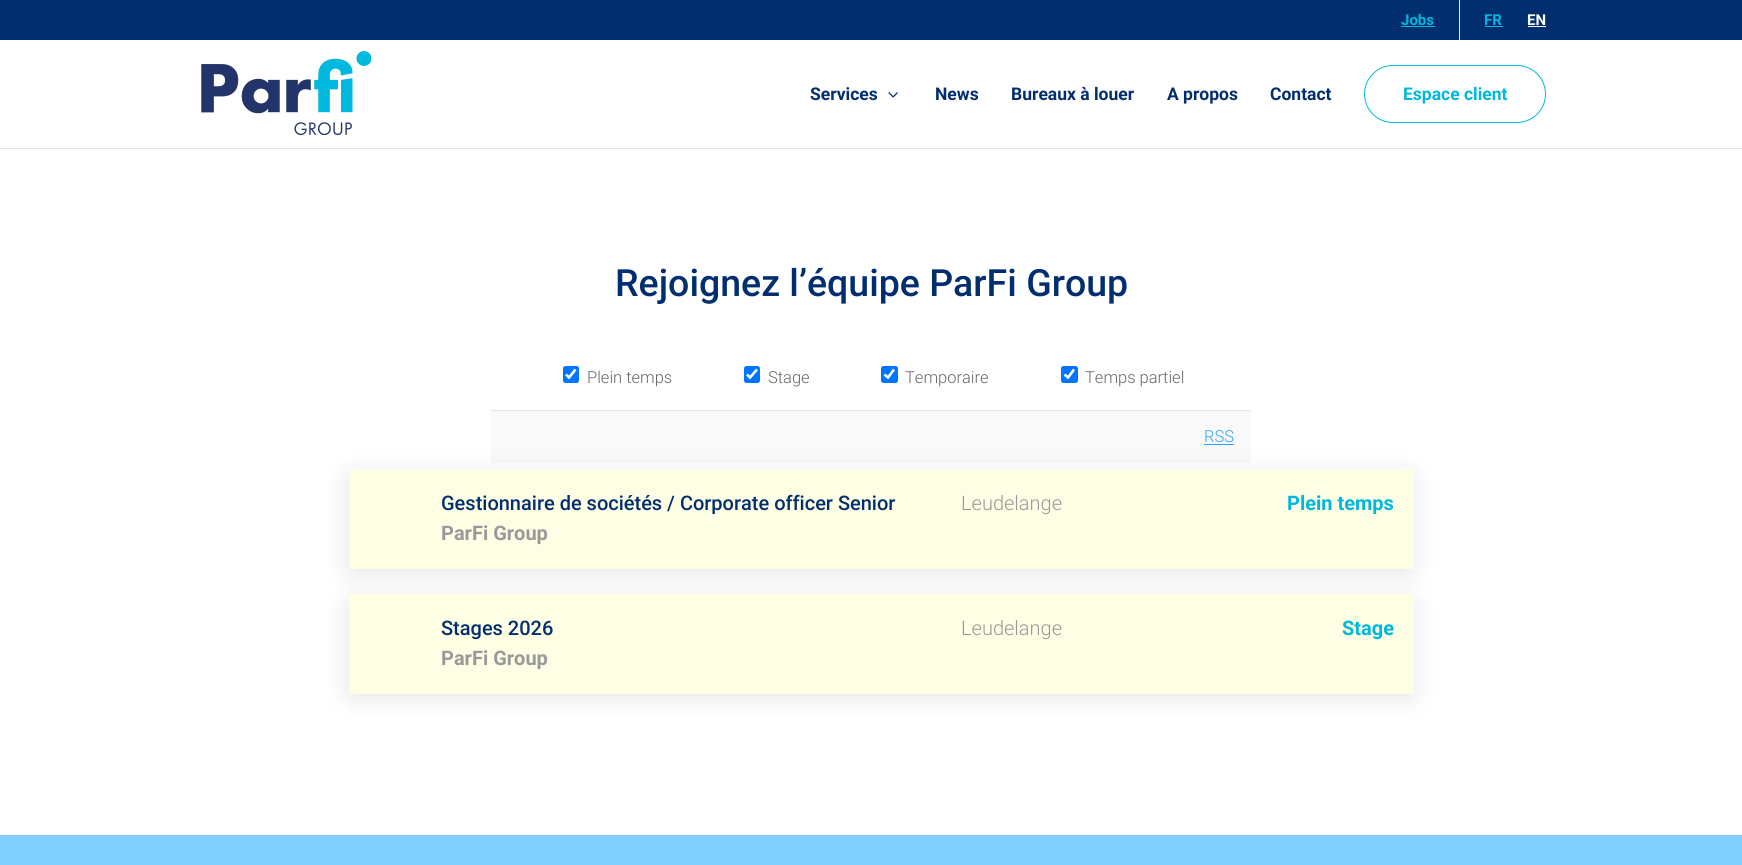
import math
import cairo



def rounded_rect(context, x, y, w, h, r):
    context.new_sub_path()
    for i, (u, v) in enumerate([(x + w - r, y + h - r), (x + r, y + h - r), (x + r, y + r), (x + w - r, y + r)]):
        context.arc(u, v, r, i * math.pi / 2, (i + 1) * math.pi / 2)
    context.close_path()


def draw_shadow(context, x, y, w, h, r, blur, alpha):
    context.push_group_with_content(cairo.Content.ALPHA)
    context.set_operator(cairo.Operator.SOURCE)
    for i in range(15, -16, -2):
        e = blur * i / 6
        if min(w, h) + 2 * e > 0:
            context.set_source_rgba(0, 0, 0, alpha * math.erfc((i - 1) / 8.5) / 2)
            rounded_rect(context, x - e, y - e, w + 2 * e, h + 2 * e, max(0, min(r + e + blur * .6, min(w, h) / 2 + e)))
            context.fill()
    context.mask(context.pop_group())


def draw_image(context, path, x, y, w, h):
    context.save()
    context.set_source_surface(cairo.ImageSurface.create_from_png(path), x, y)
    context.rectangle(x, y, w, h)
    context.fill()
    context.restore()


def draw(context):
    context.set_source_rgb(1, 1, 1)
    context.paint()
    context.set_source_rgb(1 / 255, 46 / 255, 110 / 255)
    context.rectangle(0, 0, 1742, 40)
    context.fill()
    context.set_source_rgb(0, 186 / 255, 222 / 255)
    context.rectangle(1401, 26, 34, 1)
    context.fill()
    context.set_source_rgb(230 / 255, 230 / 255, 230 / 255)
    context.rectangle(1459, 0, 1, 40)
    context.fill()
    context.set_source_rgb(0, 186 / 255, 222 / 255)
    context.rectangle(1485, 26, 18, 1)
    context.fill()
    context.set_source_rgb(1, 1, 1)
    context.rectangle(1528, 26, 18, 1)
    context.fill()
    context.set_source_rgb(230 / 255, 230 / 255, 230 / 255)
    context.new_path()
    context.move_to(0, 148)
    context.line_to(0, 149)
    context.line_to(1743, 149)
    context.line_to(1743, 41)
    context.line_to(1742, 41)
    context.line_to(1742, 148)
    context.close_path()
    context.fill()
    draw_image(context, "images/1.png", 201, 51, 170, 85)
    draw_image(context, "images/2.png", 888, 92, 10, 6)
    rounded_rect(context, 1364.5, 65.5, 181, 57, 28.5)
    context.set_source_rgb(0, 186 / 255, 222 / 255)
    context.set_line_width(1)
    context.stroke()
    context.set_source_rgb(0, 117 / 255, 1)
    rounded_rect(context, 563, 366, 16, 17, 2.5)
    context.fill()
    context.new_path()
    context.move_to(566, 374.5)
    context.line_to(569, 377.5)
    context.line_to(575.5, 369.5)
    context.set_source_rgb(1, 1, 1)
    context.set_line_width(2.6)
    context.stroke()
    context.set_source_rgb(0, 117 / 255, 1)
    rounded_rect(context, 744, 366, 16, 17, 2.5)
    context.fill()
    context.new_path()
    context.move_to(747, 374.5)
    context.line_to(750, 377.5)
    context.line_to(757, 369.5)
    context.set_source_rgb(1, 1, 1)
    context.stroke()
    context.set_source_rgb(0, 117 / 255, 1)
    rounded_rect(context, 881, 366, 17, 17, 2.5)
    context.fill()
    context.new_path()
    context.move_to(884.5, 374.5)
    context.line_to(888, 377.5)
    context.line_to(894, 369.5)
    context.set_source_rgb(1, 1, 1)
    context.stroke()
    context.set_source_rgb(0, 117 / 255, 1)
    rounded_rect(context, 1061, 366, 17, 17, 2.5)
    context.fill()
    context.new_path()
    context.move_to(1064.5, 374.5)
    context.line_to(1068, 377.5)
    context.line_to(1074, 369.5)
    context.set_source_rgb(1, 1, 1)
    context.stroke()
    context.set_source_rgb(249 / 255, 249 / 255, 249 / 255)
    context.rectangle(491, 411, 760, 52)
    context.fill()
    context.set_source_rgb(229 / 255, 229 / 255, 229 / 255)
    context.rectangle(491, 410, 760, 1)
    context.fill()
    context.set_source_rgb(0, 0, 0)
    draw_shadow(context, 348, 474, 1065, 100, 5, 12.5, 0.1)
    context.set_source_rgb(46 / 255, 163 / 255, 242 / 255)
    context.rectangle(1204, 444, 30, 1)
    context.fill()
    context.set_source_rgb(0, 0, 0)
    draw_shadow(context, 348, 599, 1065, 100, 5, 12.5, 0.1)
    context.set_source_rgb(254 / 255, 254 / 255, 229 / 255)
    context.rectangle(349, 469, 1065, 100)
    context.fill()
    context.rectangle(349, 594, 1065, 100)
    context.fill()
    context.set_source_rgb(128 / 255, 207 / 255, 1)
    context.rectangle(0, 835, 1742, 30)
    context.fill()
    context.select_font_face("Roboto", cairo.FontSlant.NORMAL, cairo.FontWeight.BOLD)
    context.set_font_size(15)
    context.set_source_rgb(0, 184 / 255, 222 / 255)
    context.move_to(1401, 25)
    context.show_text("Jobs")
    context.move_to(1484, 25)
    context.show_text("FR")
    context.set_source_rgb(1, 1, 1)
    context.move_to(1527, 25)
    context.show_text("EN")
    context.set_font_size(17.5)
    context.set_source_rgb(1 / 255, 46 / 255, 110 / 255)
    context.move_to(810, 100)
    context.show_text("Services")
    context.move_to(935, 100)
    context.show_text("News")
    context.move_to(1011, 100)
    context.show_text("Bureaux à louer")
    context.move_to(1167, 100)
    context.show_text("A propos")
    context.move_to(1270, 100)
    context.show_text("Contact")
    context.set_source_rgb(0, 184 / 255, 222 / 255)
    context.move_to(1403, 100)
    context.show_text("Espace client")
    context.select_font_face("Roboto Medium")
    context.set_font_size(37.5)
    context.set_source_rgb(1 / 255, 46 / 255, 110 / 255)
    context.move_to(615, 296)
    context.show_text("Rejoignez l’équipe ParFi Group")
    context.select_font_face("Roboto Light")
    context.set_font_size(16.5)
    context.set_source_rgb(102 / 255, 102 / 255, 102 / 255)
    context.move_to(587, 383)
    context.show_text("Plein temps")
    context.move_to(768, 383)
    context.show_text("Stage")
    context.move_to(905, 383)
    context.show_text("Temporaire")
    context.move_to(1085, 383)
    context.show_text("Temps partiel")
    context.set_source_rgb(46 / 255, 163 / 255, 242 / 255)
    context.move_to(1204, 442)
    context.show_text("RSS")
    context.select_font_face("Roboto Medium")
    context.set_font_size(20)
    context.set_source_rgb(1 / 255, 46 / 255, 110 / 255)
    context.move_to(441, 510)
    context.show_text("Gestionnaire de sociétés / Corporate officer Senior")
    context.select_font_face("Roboto", cairo.FontSlant.NORMAL, cairo.FontWeight.BOLD)
    context.set_source_rgb(153 / 255, 153 / 255, 153 / 255)
    context.move_to(441, 540)
    context.show_text("ParFi Group")
    context.select_font_face("Roboto Light")
    context.move_to(961, 510)
    context.show_text("Leudelange")
    context.select_font_face("Roboto", cairo.FontSlant.NORMAL, cairo.FontWeight.BOLD)
    context.set_source_rgb(0, 184 / 255, 222 / 255)
    context.move_to(1287, 510)
    context.show_text("Plein temps")
    context.select_font_face("Roboto Medium")
    context.set_source_rgb(1 / 255, 46 / 255, 110 / 255)
    context.move_to(441, 635)
    context.show_text("Stages 2026")
    context.select_font_face("Roboto", cairo.FontSlant.NORMAL, cairo.FontWeight.BOLD)
    context.set_source_rgb(153 / 255, 153 / 255, 153 / 255)
    context.move_to(441, 665)
    context.show_text("ParFi Group")
    context.select_font_face("Roboto Light")
    context.move_to(961, 635)
    context.show_text("Leudelange")
    context.select_font_face("Roboto", cairo.FontSlant.NORMAL, cairo.FontWeight.BOLD)
    context.set_source_rgb(0, 184 / 255, 222 / 255)
    context.move_to(1342, 635)
    context.show_text("Stage")


surface = cairo.ImageSurface(cairo.Format.RGB24, 1742, 865)
context = cairo.Context(surface)
options = cairo.FontOptions()
options.set_hint_metrics(cairo.HintMetrics.OFF)
options.set_hint_style(cairo.HintStyle.NONE)
context.set_font_options(options)
context.set_miter_limit(4)
draw(context)
surface.write_to_png("out.png")
